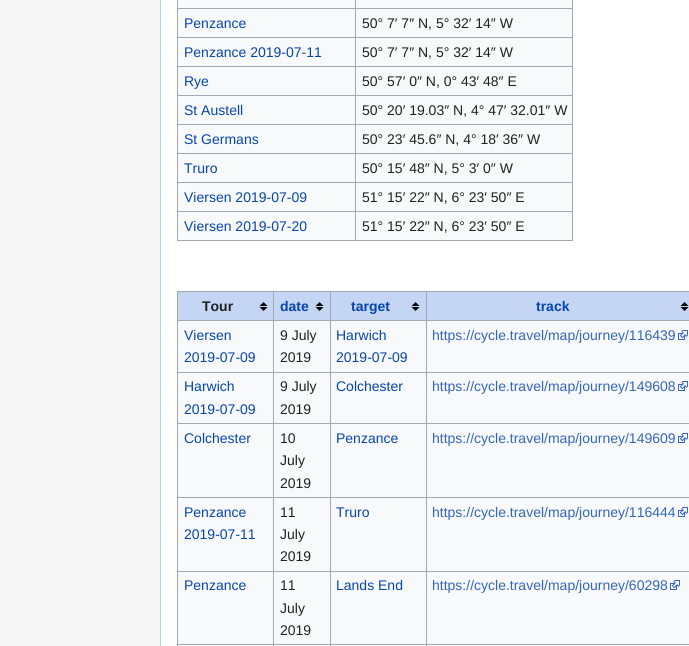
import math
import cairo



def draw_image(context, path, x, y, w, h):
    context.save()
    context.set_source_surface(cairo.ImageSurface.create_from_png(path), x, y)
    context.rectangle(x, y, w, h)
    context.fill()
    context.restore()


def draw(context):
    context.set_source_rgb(246 / 255, 246 / 255, 246 / 255)
    context.paint()
    context.set_source_rgb(1, 1, 1)
    context.rectangle(161, 0, 528, 646)
    context.fill()
    context.set_source_rgb(167 / 255, 215 / 255, 249 / 255)
    context.rectangle(160, 0, 1, 646)
    context.fill()
    context.set_source_rgb(248 / 255, 249 / 255, 250 / 255)
    context.rectangle(178, 0, 394, 240)
    context.fill()
    context.set_source_rgb(162 / 255, 169 / 255, 177 / 255)
    context.rectangle(572, 0, 1, 241)
    context.fill()
    context.rectangle(177, 240, 396, 1)
    context.fill()
    context.rectangle(177, 0, 1, 241)
    context.fill()
    context.rectangle(355, 8, 218, 1)
    context.fill()
    context.rectangle(355, 37, 218, 1)
    context.fill()
    context.rectangle(355, 66, 218, 1)
    context.fill()
    context.rectangle(355, 95, 218, 1)
    context.fill()
    context.rectangle(355, 124, 218, 1)
    context.fill()
    context.rectangle(355, 153, 218, 1)
    context.fill()
    context.rectangle(355, 182, 218, 1)
    context.fill()
    context.rectangle(355, 211, 218, 1)
    context.fill()
    context.rectangle(355, 211, 1, 30)
    context.fill()
    context.rectangle(177, 211, 179, 1)
    context.fill()
    context.rectangle(355, 182, 1, 30)
    context.fill()
    context.rectangle(177, 182, 179, 1)
    context.fill()
    context.rectangle(355, 153, 1, 30)
    context.fill()
    context.rectangle(177, 153, 179, 1)
    context.fill()
    context.rectangle(355, 124, 1, 30)
    context.fill()
    context.rectangle(177, 124, 179, 1)
    context.fill()
    context.rectangle(355, 95, 1, 30)
    context.fill()
    context.rectangle(177, 95, 179, 1)
    context.fill()
    context.rectangle(355, 66, 1, 30)
    context.fill()
    context.rectangle(177, 66, 179, 1)
    context.fill()
    context.rectangle(355, 37, 1, 30)
    context.fill()
    context.rectangle(177, 37, 179, 1)
    context.fill()
    context.rectangle(355, 8, 1, 30)
    context.fill()
    context.rectangle(177, 8, 179, 1)
    context.fill()
    context.rectangle(355, 0, 1, 9)
    context.fill()
    context.set_source_rgb(248 / 255, 249 / 255, 250 / 255)
    context.rectangle(178, 321, 511, 325)
    context.fill()
    context.set_source_rgb(162 / 255, 169 / 255, 177 / 255)
    context.rectangle(177, 291, 512, 1)
    context.fill()
    context.rectangle(177, 291, 1, 355)
    context.fill()
    context.set_source_rgb(196 / 255, 214 / 255, 244 / 255)
    context.rectangle(178, 292, 95, 28)
    context.fill()
    draw_image(context, "images/1.png", 259, 302, 9, 9)
    context.rectangle(274, 292, 56, 28)
    context.fill()
    draw_image(context, "images/1.png", 315, 302, 9, 9)
    context.set_source_rgb(162 / 255, 169 / 255, 177 / 255)
    context.rectangle(426, 320, 263, 1)
    context.fill()
    context.rectangle(426, 372, 263, 1)
    context.fill()
    context.rectangle(426, 423, 263, 1)
    context.fill()
    context.rectangle(426, 497, 263, 1)
    context.fill()
    context.rectangle(426, 571, 263, 1)
    context.fill()
    context.rectangle(426, 644, 263, 1)
    context.fill()
    context.rectangle(426, 644, 1, 2)
    context.fill()
    context.rectangle(330, 644, 97, 1)
    context.fill()
    context.rectangle(426, 571, 1, 74)
    context.fill()
    context.rectangle(330, 571, 97, 1)
    context.fill()
    context.rectangle(426, 497, 1, 75)
    context.fill()
    context.rectangle(330, 497, 97, 1)
    context.fill()
    context.rectangle(426, 423, 1, 75)
    context.fill()
    context.rectangle(330, 423, 97, 1)
    context.fill()
    context.rectangle(426, 372, 1, 52)
    context.fill()
    context.rectangle(330, 372, 97, 1)
    context.fill()
    context.rectangle(426, 320, 1, 53)
    context.fill()
    context.rectangle(330, 320, 97, 1)
    context.fill()
    context.rectangle(330, 644, 1, 2)
    context.fill()
    context.rectangle(273, 644, 58, 1)
    context.fill()
    context.rectangle(330, 571, 1, 74)
    context.fill()
    context.rectangle(273, 571, 58, 1)
    context.fill()
    context.rectangle(330, 497, 1, 75)
    context.fill()
    context.rectangle(273, 497, 58, 1)
    context.fill()
    context.rectangle(330, 423, 1, 75)
    context.fill()
    context.rectangle(273, 423, 58, 1)
    context.fill()
    context.rectangle(330, 372, 1, 52)
    context.fill()
    context.rectangle(273, 372, 58, 1)
    context.fill()
    context.rectangle(330, 320, 1, 53)
    context.fill()
    context.rectangle(273, 320, 58, 1)
    context.fill()
    context.rectangle(273, 644, 1, 2)
    context.fill()
    context.rectangle(177, 644, 97, 1)
    context.fill()
    context.rectangle(273, 571, 1, 74)
    context.fill()
    context.rectangle(177, 571, 97, 1)
    context.fill()
    context.rectangle(273, 497, 1, 75)
    context.fill()
    context.rectangle(177, 497, 97, 1)
    context.fill()
    context.rectangle(273, 423, 1, 75)
    context.fill()
    context.rectangle(177, 423, 97, 1)
    context.fill()
    context.rectangle(273, 372, 1, 52)
    context.fill()
    context.rectangle(177, 372, 97, 1)
    context.fill()
    context.rectangle(273, 320, 1, 53)
    context.fill()
    context.rectangle(177, 320, 97, 1)
    context.fill()
    context.rectangle(273, 291, 1, 30)
    context.fill()
    context.set_source_rgb(196 / 255, 214 / 255, 244 / 255)
    context.rectangle(331, 292, 95, 28)
    context.fill()
    draw_image(context, "images/1.png", 411, 302, 9, 9)
    context.set_source_rgb(162 / 255, 169 / 255, 177 / 255)
    context.rectangle(330, 291, 1, 30)
    context.fill()
    context.set_source_rgb(196 / 255, 214 / 255, 244 / 255)
    context.rectangle(427, 292, 262, 28)
    context.fill()
    draw_image(context, "images/1.png", 680, 302, 9, 9)
    context.set_source_rgb(162 / 255, 169 / 255, 177 / 255)
    context.rectangle(426, 291, 1, 30)
    context.fill()
    draw_image(context, "images/2.png", 678, 330, 10, 10)
    draw_image(context, "images/2.png", 678, 381, 10, 10)
    draw_image(context, "images/2.png", 678, 433, 10, 10)
    draw_image(context, "images/2.png", 678, 507, 10, 10)
    draw_image(context, "images/2.png", 670, 580, 10, 10)
    context.select_font_face("Liberation Sans")
    context.set_font_size(14)
    context.set_source_rgb(6 / 255, 69 / 255, 173 / 255)
    context.move_to(184, 28)
    context.show_text("Penzance")
    context.set_source_rgb(32 / 255, 33 / 255, 34 / 255)
    context.move_to(362, 28)
    context.show_text("50° 7′ 7″ N, 5° 32′ 14″ W")
    context.set_source_rgb(6 / 255, 69 / 255, 173 / 255)
    context.move_to(184, 57)
    context.show_text("Penzance 2019-07-11")
    context.set_source_rgb(32 / 255, 33 / 255, 34 / 255)
    context.move_to(362, 57)
    context.show_text("50° 7′ 7″ N, 5° 32′ 14″ W")
    context.set_source_rgb(6 / 255, 69 / 255, 173 / 255)
    context.move_to(184, 86)
    context.show_text("Rye")
    context.set_source_rgb(32 / 255, 33 / 255, 34 / 255)
    context.move_to(362, 86)
    context.show_text("50° 57′ 0″ N, 0° 43′ 48″ E")
    context.set_source_rgb(6 / 255, 69 / 255, 173 / 255)
    context.move_to(184, 115)
    context.show_text("St Austell")
    context.set_source_rgb(32 / 255, 33 / 255, 34 / 255)
    context.move_to(362, 115)
    context.show_text("50° 20′ 19.03″ N, 4° 47′ 32.01″ W")
    context.set_source_rgb(6 / 255, 69 / 255, 173 / 255)
    context.move_to(184, 144)
    context.show_text("St Germans")
    context.set_source_rgb(32 / 255, 33 / 255, 34 / 255)
    context.move_to(362, 144)
    context.show_text("50° 23′ 45.6″ N, 4° 18′ 36″ W")
    context.set_source_rgb(6 / 255, 69 / 255, 173 / 255)
    context.move_to(184, 173)
    context.show_text("Truro")
    context.set_source_rgb(32 / 255, 33 / 255, 34 / 255)
    context.move_to(362, 173)
    context.show_text("50° 15′ 48″ N, 5° 3′ 0″ W")
    context.set_source_rgb(6 / 255, 69 / 255, 173 / 255)
    context.move_to(184, 202)
    context.show_text("Viersen 2019-07-09")
    context.set_source_rgb(32 / 255, 33 / 255, 34 / 255)
    context.move_to(362, 202)
    context.show_text("51° 15′ 22″ N, 6° 23′ 50″ E")
    context.set_source_rgb(6 / 255, 69 / 255, 173 / 255)
    context.move_to(184, 231)
    context.show_text("Viersen 2019-07-20")
    context.set_source_rgb(32 / 255, 33 / 255, 34 / 255)
    context.move_to(362, 231)
    context.show_text("51° 15′ 22″ N, 6° 23′ 50″ E")
    context.select_font_face("Liberation Sans", cairo.FontSlant.NORMAL, cairo.FontWeight.BOLD)
    context.move_to(202, 311)
    context.show_text("Tour")
    context.set_source_rgb(6 / 255, 69 / 255, 173 / 255)
    context.move_to(280, 311)
    context.show_text("date")
    context.move_to(351, 311)
    context.show_text("target")
    context.move_to(536, 311)
    context.show_text("track")
    context.select_font_face("Liberation Sans")
    context.move_to(184, 340)
    context.show_text("Viersen")
    context.move_to(184, 362)
    context.show_text("2019-07-09")
    context.set_source_rgb(32 / 255, 33 / 255, 34 / 255)
    context.move_to(280, 340)
    context.show_text("9 July")
    context.move_to(280, 362)
    context.show_text("2019")
    context.set_source_rgb(6 / 255, 69 / 255, 173 / 255)
    context.move_to(336, 340)
    context.show_text("Harwich")
    context.move_to(336, 362)
    context.show_text("2019-07-09")
    context.set_source_rgb(51 / 255, 102 / 255, 187 / 255)
    context.move_to(432, 340)
    context.show_text("https://cycle.travel/map/journey/116439")
    context.set_source_rgb(6 / 255, 69 / 255, 173 / 255)
    context.move_to(184, 391)
    context.show_text("Harwich")
    context.move_to(184, 414)
    context.show_text("2019-07-09")
    context.set_source_rgb(32 / 255, 33 / 255, 34 / 255)
    context.move_to(280, 391)
    context.show_text("9 July")
    context.move_to(280, 414)
    context.show_text("2019")
    context.set_source_rgb(6 / 255, 69 / 255, 173 / 255)
    context.move_to(336, 391)
    context.show_text("Colchester")
    context.set_source_rgb(51 / 255, 102 / 255, 187 / 255)
    context.move_to(432, 391)
    context.show_text("https://cycle.travel/map/journey/149608")
    context.set_source_rgb(6 / 255, 69 / 255, 173 / 255)
    context.move_to(184, 443)
    context.show_text("Colchester")
    context.set_source_rgb(32 / 255, 33 / 255, 34 / 255)
    context.move_to(280, 443)
    context.show_text("10")
    context.move_to(280, 465)
    context.show_text("July")
    context.move_to(280, 488)
    context.show_text("2019")
    context.set_source_rgb(6 / 255, 69 / 255, 173 / 255)
    context.move_to(336, 443)
    context.show_text("Penzance")
    context.set_source_rgb(51 / 255, 102 / 255, 187 / 255)
    context.move_to(432, 443)
    context.show_text("https://cycle.travel/map/journey/149609")
    context.set_source_rgb(6 / 255, 69 / 255, 173 / 255)
    context.move_to(184, 517)
    context.show_text("Penzance")
    context.move_to(184, 539)
    context.show_text("2019-07-11")
    context.set_source_rgb(32 / 255, 33 / 255, 34 / 255)
    context.move_to(280, 517)
    context.show_text("11")
    context.move_to(280, 539)
    context.show_text("July")
    context.move_to(280, 561)
    context.show_text("2019")
    context.set_source_rgb(6 / 255, 69 / 255, 173 / 255)
    context.move_to(336, 517)
    context.show_text("Truro")
    context.set_source_rgb(51 / 255, 102 / 255, 187 / 255)
    context.move_to(432, 517)
    context.show_text("https://cycle.travel/map/journey/116444")
    context.set_source_rgb(6 / 255, 69 / 255, 173 / 255)
    context.move_to(184, 590)
    context.show_text("Penzance")
    context.set_source_rgb(32 / 255, 33 / 255, 34 / 255)
    context.move_to(280, 590)
    context.show_text("11")
    context.move_to(280, 613)
    context.show_text("July")
    context.move_to(280, 635)
    context.show_text("2019")
    context.set_source_rgb(6 / 255, 69 / 255, 173 / 255)
    context.move_to(336, 590)
    context.show_text("Lands End")
    context.set_source_rgb(51 / 255, 102 / 255, 187 / 255)
    context.move_to(432, 590)
    context.show_text("https://cycle.travel/map/journey/60298")


surface = cairo.ImageSurface(cairo.Format.RGB24, 689, 646)
context = cairo.Context(surface)
options = cairo.FontOptions()
options.set_hint_metrics(cairo.HintMetrics.OFF)
options.set_hint_style(cairo.HintStyle.NONE)
context.set_font_options(options)
context.set_miter_limit(4)
draw(context)
surface.write_to_png("out.png")
